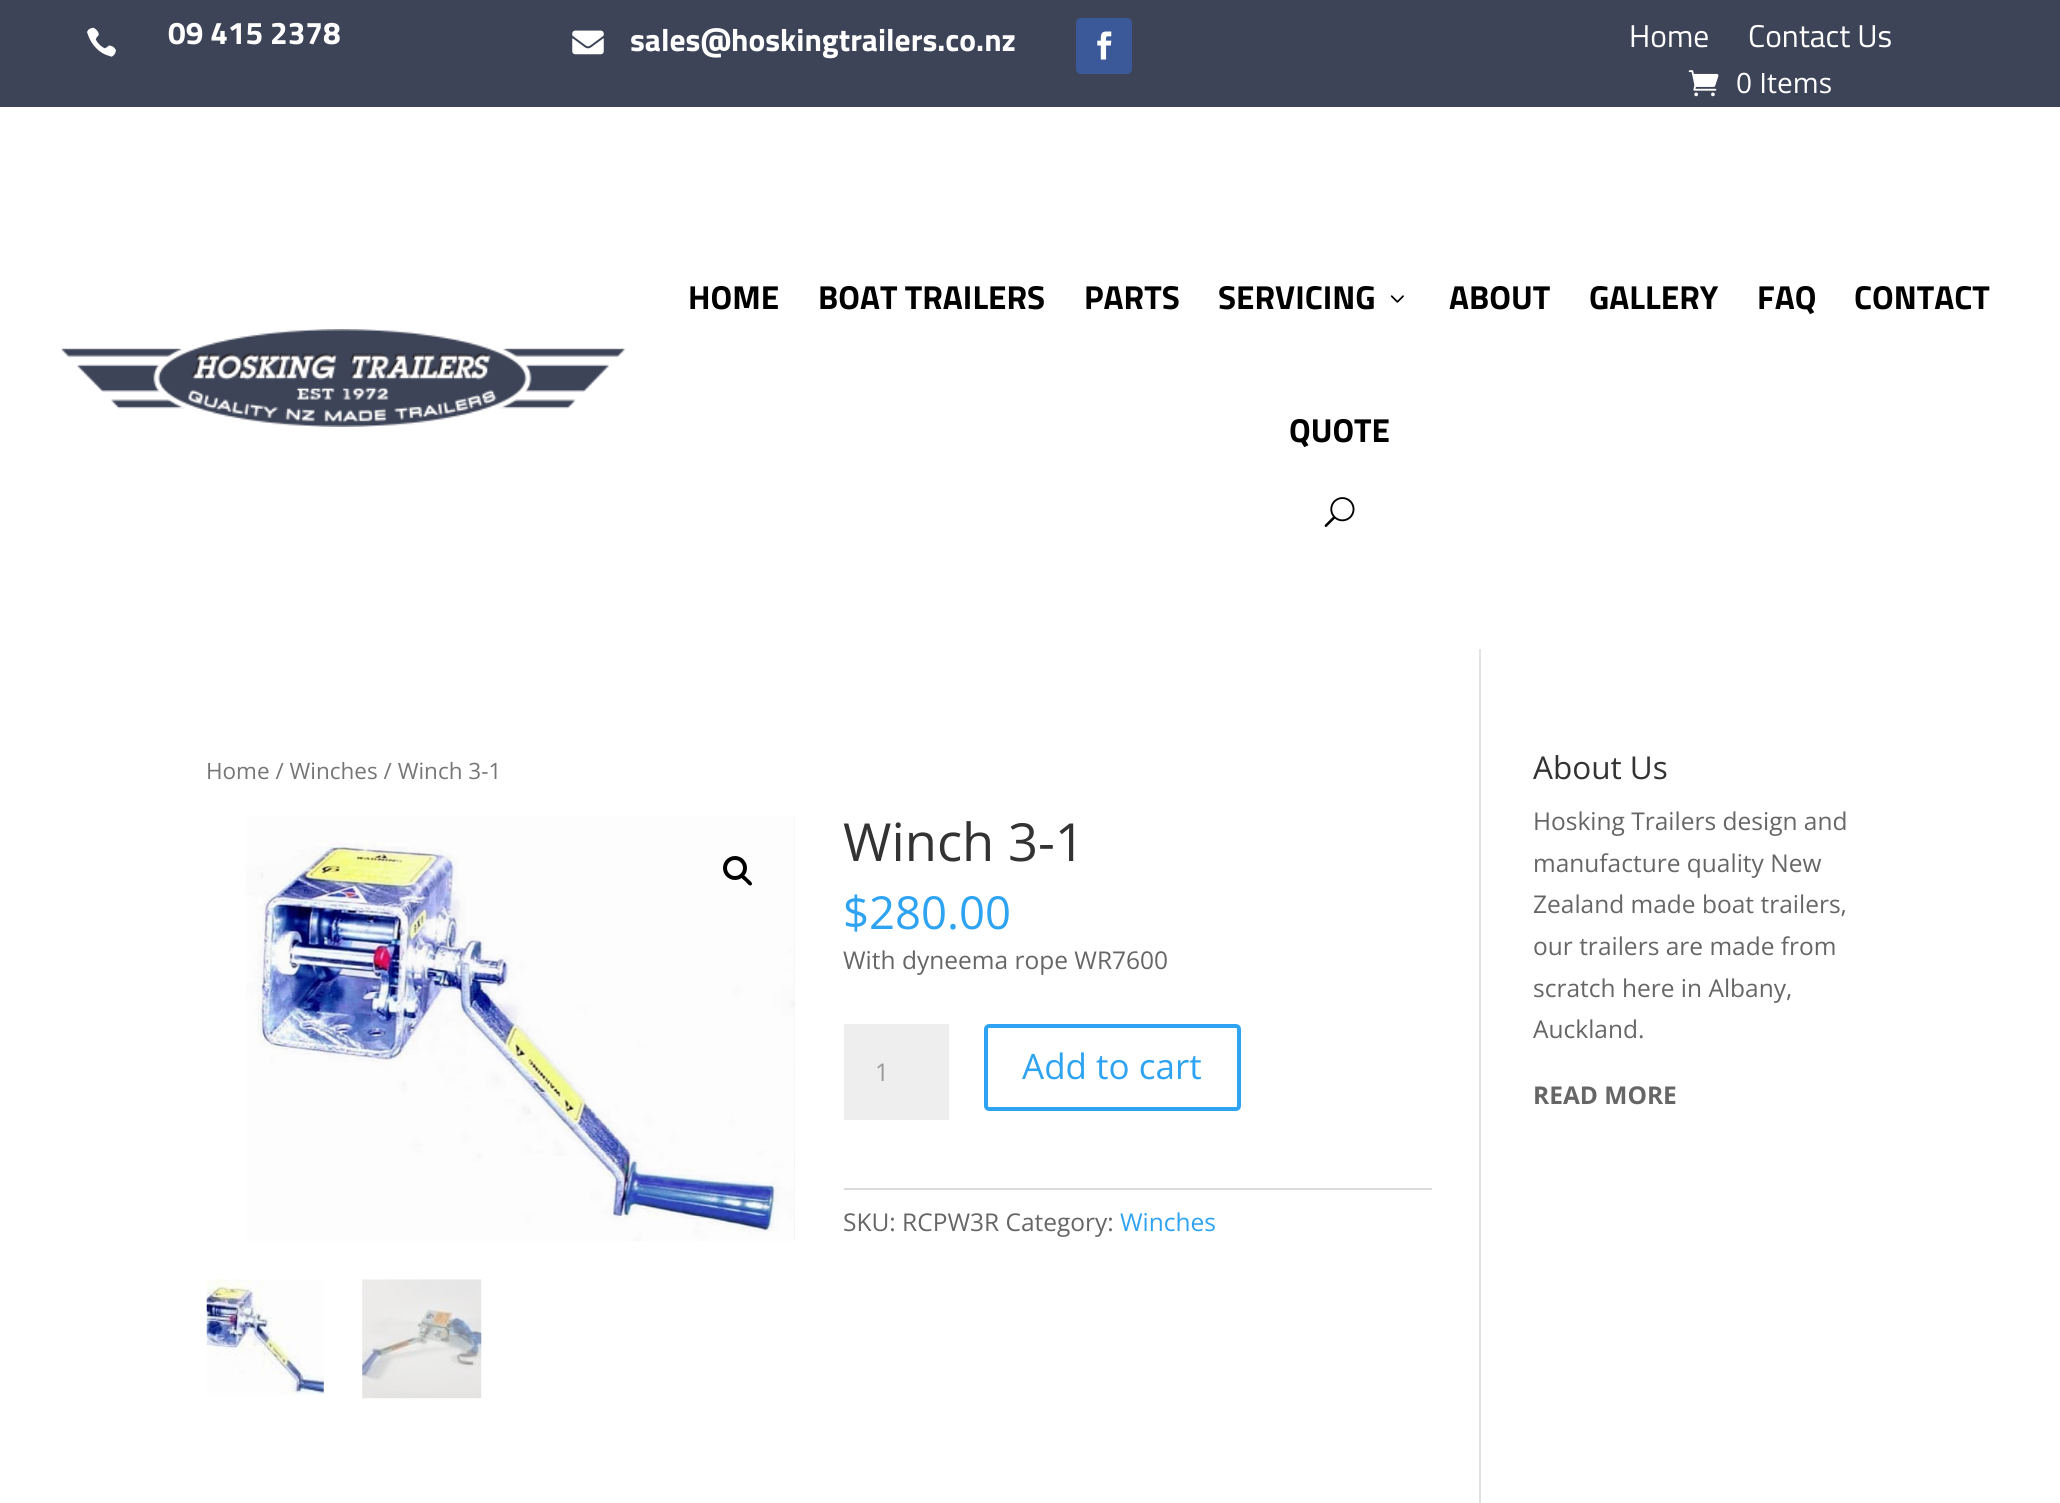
import math
import cairo



def rounded_rect(context, x, y, w, h, r):
    context.new_sub_path()
    for i, (u, v) in enumerate([(x + w - r, y + h - r), (x + r, y + h - r), (x + r, y + r), (x + w - r, y + r)]):
        context.arc(u, v, r, i * math.pi / 2, (i + 1) * math.pi / 2)
    context.close_path()


def draw_image(context, path, x, y, w, h):
    context.save()
    context.set_source_surface(cairo.ImageSurface.create_from_png(path), x, y)
    context.rectangle(x, y, w, h)
    context.fill()
    context.restore()


def draw(context):
    context.set_source_rgb(1, 1, 1)
    context.paint()
    context.set_source_rgb(62 / 255, 68 / 255, 88 / 255)
    context.rectangle(0, 0, 2060, 107)
    context.fill()
    draw_image(context, "images/1.png", 87, 27, 29, 30)
    draw_image(context, "images/2.png", 572, 30, 32, 25)
    context.set_source_rgb(59 / 255, 89 / 255, 152 / 255)
    rounded_rect(context, 1076, 18, 56, 56, 5)
    context.fill()
    draw_image(context, "images/3.png", 1097, 31, 15, 29)
    draw_image(context, "images/4.png", 1688, 70, 31, 27)
    draw_image(context, "images/5.png", 61, 329, 565, 98)
    draw_image(context, "images/6.png", 1390, 295, 14, 8)
    draw_image(context, "images/7.png", 1324, 497, 31, 30)
    context.set_source_rgb(226 / 255, 226 / 255, 226 / 255)
    context.rectangle(1479, 649, 2, 854)
    context.fill()
    draw_image(context, "images/8.png", 793, 815, 2, 426)
    draw_image(context, "images/9.png", 246, 816, 549, 425)
    context.arc(735, 868, 10, 0, 2 * math.pi)
    context.set_source_rgb(0, 0, 0)
    context.set_line_width(4)
    context.stroke()
    context.new_path()
    context.move_to(741.5, 875.5)
    context.curve_to(743.5, 873.5, 747, 878, 748, 879)
    context.curve_to(749, 880, 753.5, 883, 751.5, 885)
    context.curve_to(749.5, 887, 746.5, 882.5, 745.5, 881.5)
    context.curve_to(744.5, 880.5, 739.5, 877.5, 741.5, 875.5)
    context.close_path()
    context.fill()
    draw_image(context, "images/10.png", 206, 1279, 118, 116)
    draw_image(context, "images/11.png", 362, 1279, 120, 120)
    context.set_source_rgb(238 / 255, 238 / 255, 238 / 255)
    context.rectangle(844, 1024, 105, 96)
    context.fill()
    rounded_rect(context, 986, 1026, 253, 83, 3)
    context.set_source_rgb(46 / 255, 163 / 255, 242 / 255)
    context.stroke()
    context.set_source_rgb(218 / 255, 218 / 255, 218 / 255)
    context.rectangle(844, 1188, 588, 2)
    context.fill()
    context.select_font_face("Titillium Web", cairo.FontSlant.NORMAL, cairo.FontWeight.BOLD)
    context.set_font_size(31.5)
    context.set_source_rgb(1, 1, 1)
    context.move_to(168, 44)
    context.show_text("09 415 2378")
    context.move_to(630, 51)
    context.show_text("sales@hoskingtrailers.co.nz")
    context.select_font_face("Titillium Web")
    context.move_to(1629, 47)
    context.show_text("Home")
    context.move_to(1748, 47)
    context.show_text("Contact Us")
    context.select_font_face("Open Sans")
    context.set_font_size(28)
    context.move_to(1736, 93)
    context.show_text("0 Items")
    context.select_font_face("Titillium Web", cairo.FontSlant.NORMAL, cairo.FontWeight.BOLD)
    context.set_font_size(33.25)
    context.set_source_rgb(0, 0, 0)
    context.move_to(688, 309)
    context.show_text("HOME")
    context.move_to(818, 309)
    context.show_text("BOAT TRAILERS")
    context.move_to(1084, 309)
    context.show_text("PARTS")
    context.move_to(1218, 309)
    context.show_text("SERVICING")
    context.move_to(1449, 309)
    context.show_text("ABOUT")
    context.move_to(1589, 309)
    context.show_text("GALLERY")
    context.move_to(1757, 309)
    context.show_text("FAQ")
    context.move_to(1854, 309)
    context.show_text("CONTACT")
    context.move_to(1289, 442)
    context.show_text("QUOTE")
    context.select_font_face("Open Sans")
    context.set_font_size(22.5)
    context.set_source_rgb(118 / 255, 118 / 255, 118 / 255)
    context.move_to(206, 779)
    context.show_text("Home / Winches / Winch 3-1")
    context.set_font_size(52.5)
    context.set_source_rgb(51 / 255, 51 / 255, 51 / 255)
    context.move_to(843, 861)
    context.show_text("Winch 3-1")
    context.set_font_size(45.5)
    context.set_source_rgb(46 / 255, 163 / 255, 242 / 255)
    context.move_to(843, 929)
    context.show_text("$280.00")
    context.set_font_size(24.5)
    context.set_source_rgb(102 / 255, 102 / 255, 102 / 255)
    context.move_to(843, 969)
    context.show_text("With dyneema rope WR7600")
    context.set_source_rgb(153 / 255, 153 / 255, 153 / 255)
    context.move_to(875, 1081)
    context.show_text("1")
    context.set_font_size(35)
    context.set_source_rgb(46 / 255, 163 / 255, 242 / 255)
    context.move_to(1022, 1079)
    context.show_text("Add to cart")
    context.set_font_size(24.5)
    context.set_source_rgb(102 / 255, 102 / 255, 102 / 255)
    context.move_to(843, 1231)
    context.show_text("SKU: RCPW3R Category:")
    context.set_source_rgb(46 / 255, 163 / 255, 242 / 255)
    context.move_to(1120, 1231)
    context.show_text("Winches")
    context.set_font_size(31.5)
    context.set_source_rgb(51 / 255, 51 / 255, 51 / 255)
    context.move_to(1533, 779)
    context.show_text("About Us")
    context.set_font_size(24.5)
    context.set_source_rgb(102 / 255, 102 / 255, 102 / 255)
    context.move_to(1533, 830)
    context.show_text("Hosking Trailers design and")
    context.move_to(1533, 872)
    context.show_text("manufacture quality New")
    context.move_to(1533, 913)
    context.show_text("Zealand made boat trailers,")
    context.move_to(1533, 955)
    context.show_text("our trailers are made from")
    context.move_to(1533, 997)
    context.show_text("scratch here in Albany,")
    context.move_to(1533, 1038)
    context.show_text("Auckland.")
    context.select_font_face("Open Sans", cairo.FontSlant.NORMAL, cairo.FontWeight.BOLD)
    context.move_to(1533, 1104)
    context.show_text("READ MORE")


surface = cairo.ImageSurface(cairo.Format.RGB24, 2060, 1503)
context = cairo.Context(surface)
options = cairo.FontOptions()
options.set_hint_metrics(cairo.HintMetrics.OFF)
options.set_hint_style(cairo.HintStyle.NONE)
context.set_font_options(options)
context.set_miter_limit(4)
draw(context)
surface.write_to_png("out.png")
